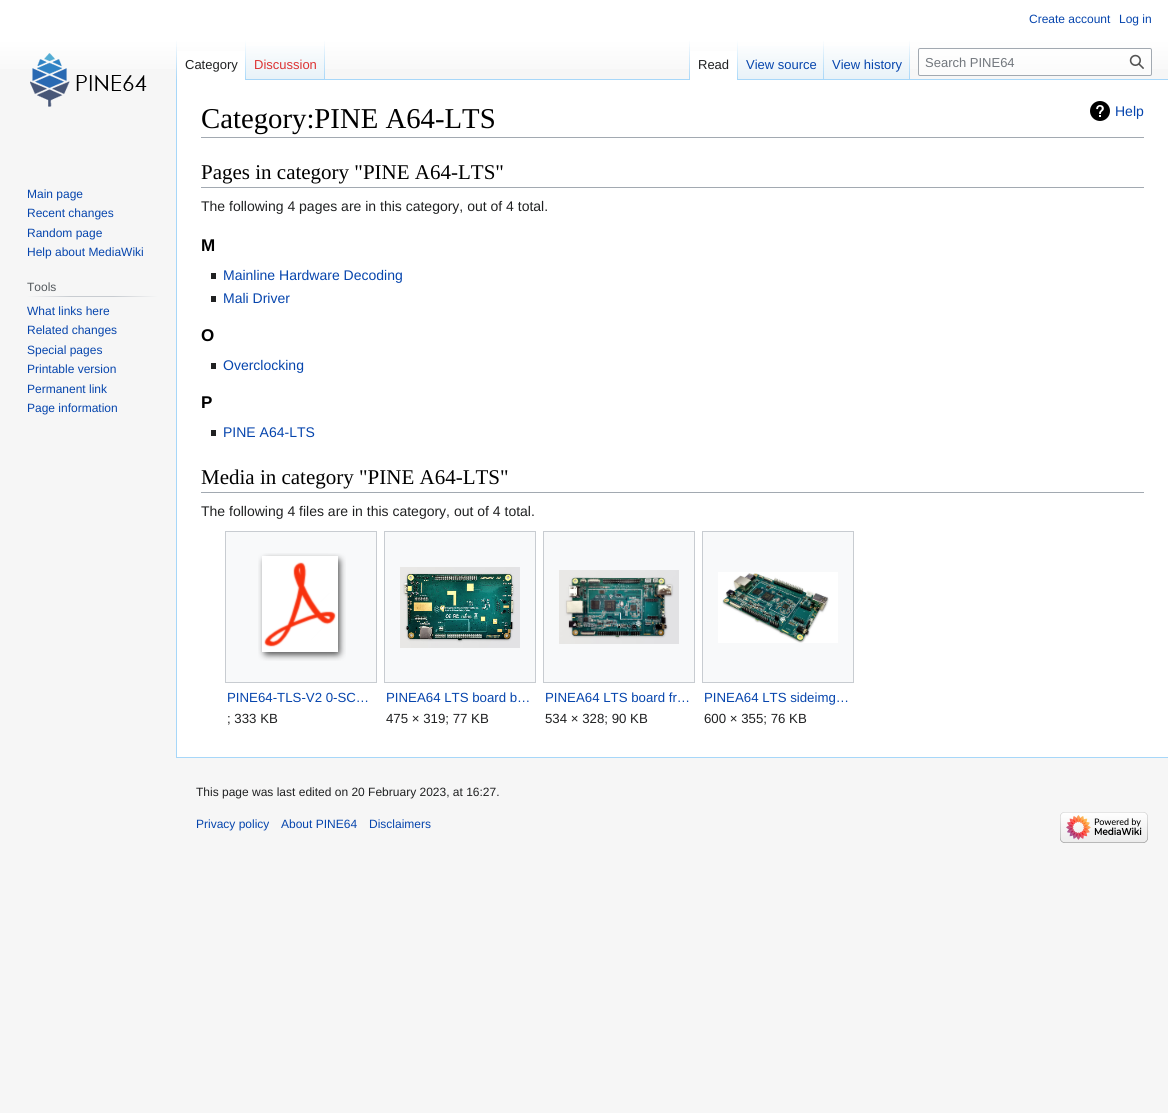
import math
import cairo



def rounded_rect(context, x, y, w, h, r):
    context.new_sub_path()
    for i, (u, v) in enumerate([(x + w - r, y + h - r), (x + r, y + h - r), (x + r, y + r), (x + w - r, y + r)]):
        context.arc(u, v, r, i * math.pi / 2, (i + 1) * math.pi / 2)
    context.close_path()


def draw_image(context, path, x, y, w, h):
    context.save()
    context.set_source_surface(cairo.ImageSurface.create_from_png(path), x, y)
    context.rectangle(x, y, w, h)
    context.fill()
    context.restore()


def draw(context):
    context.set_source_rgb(246 / 255, 246 / 255, 246 / 255)
    context.paint()
    gradient = cairo.LinearGradient(584, 0, 584, 80)
    gradient.add_color_stop_rgba(0.5, 1, 1, 1, 1)
    gradient.add_color_stop_rgba(1, 246 / 255, 246 / 255, 246 / 255, 1)
    context.set_source(gradient)
    context.rectangle(0, 0, 1168, 69)
    context.fill()
    context.set_source_rgb(167 / 255, 215 / 255, 249 / 255)
    context.rectangle(176, 757, 992, 1)
    context.fill()
    context.rectangle(176, 79, 1, 679)
    context.fill()
    gradient = cairo.LinearGradient(177, 40, 177, 80)
    gradient.add_color_stop_rgba(0, 167 / 255, 215 / 255, 249 / 255, 0)
    gradient.add_color_stop_rgba(1, 167 / 255, 215 / 255, 249 / 255, 1)
    context.set_source(gradient)
    context.rectangle(176, 40, 1, 40)
    context.fill()
    context.set_source_rgb(1, 1, 1)
    context.rectangle(177, 51, 68, 29)
    context.fill()
    gradient = cairo.LinearGradient(246, 40, 246, 80)
    gradient.add_color_stop_rgba(0, 1, 1, 1, 1)
    gradient.add_color_stop_rgba(1, 167 / 255, 215 / 255, 249 / 255, 1)
    context.set_source(gradient)
    context.rectangle(245, 40, 1, 40)
    context.fill()
    gradient = cairo.LinearGradient(286, 80, 286, 40)
    gradient.add_color_stop_rgba(0, 119 / 255, 193 / 255, 246 / 255, 1)
    gradient.add_color_stop_rgba(0.03, 232 / 255, 242 / 255, 248 / 255, 1)
    gradient.add_color_stop_rgba(1, 1, 1, 1, 1)
    context.set_source(gradient)
    context.rectangle(246, 46, 79, 34)
    context.fill()
    gradient = cairo.LinearGradient(325, 40, 325, 80)
    gradient.add_color_stop_rgba(0, 167 / 255, 215 / 255, 249 / 255, 0)
    gradient.add_color_stop_rgba(1, 167 / 255, 215 / 255, 249 / 255, 1)
    context.set_source(gradient)
    context.rectangle(324, 40, 1, 40)
    context.fill()
    context.set_source_rgb(167 / 255, 215 / 255, 249 / 255)
    context.rectangle(325, 79, 843, 1)
    context.fill()
    gradient = cairo.LinearGradient(690, 40, 690, 80)
    gradient.add_color_stop_rgba(0, 167 / 255, 215 / 255, 249 / 255, 0)
    gradient.add_color_stop_rgba(1, 167 / 255, 215 / 255, 249 / 255, 1)
    context.set_source(gradient)
    context.rectangle(689, 40, 1, 40)
    context.fill()
    context.set_source_rgb(1, 1, 1)
    context.rectangle(690, 51, 47, 29)
    context.fill()
    gradient = cairo.LinearGradient(738, 40, 738, 80)
    gradient.add_color_stop_rgba(0, 1, 1, 1, 1)
    gradient.add_color_stop_rgba(1, 167 / 255, 215 / 255, 249 / 255, 1)
    context.set_source(gradient)
    context.rectangle(737, 40, 1, 40)
    context.fill()
    gradient = cairo.LinearGradient(781, 80, 781, 40)
    gradient.add_color_stop_rgba(0, 119 / 255, 193 / 255, 246 / 255, 1)
    gradient.add_color_stop_rgba(0.03, 232 / 255, 242 / 255, 248 / 255, 1)
    gradient.add_color_stop_rgba(1, 1, 1, 1, 1)
    context.set_source(gradient)
    context.rectangle(738, 46, 86, 33)
    context.fill()
    gradient = cairo.LinearGradient(824, 40, 824, 80)
    gradient.add_color_stop_rgba(0, 167 / 255, 215 / 255, 249 / 255, 0)
    gradient.add_color_stop_rgba(1, 167 / 255, 215 / 255, 249 / 255, 1)
    context.set_source(gradient)
    context.rectangle(823, 40, 1, 40)
    context.fill()
    gradient = cairo.LinearGradient(867, 80, 867, 40)
    gradient.add_color_stop_rgba(0, 119 / 255, 193 / 255, 246 / 255, 1)
    gradient.add_color_stop_rgba(0.03, 232 / 255, 242 / 255, 248 / 255, 1)
    gradient.add_color_stop_rgba(1, 1, 1, 1, 1)
    context.set_source(gradient)
    context.rectangle(824, 46, 86, 33)
    context.fill()
    gradient = cairo.LinearGradient(910, 40, 910, 80)
    gradient.add_color_stop_rgba(0, 167 / 255, 215 / 255, 249 / 255, 0)
    gradient.add_color_stop_rgba(1, 167 / 255, 215 / 255, 249 / 255, 1)
    context.set_source(gradient)
    context.rectangle(909, 40, 1, 40)
    context.fill()
    context.set_source_rgba(1, 1, 1, 0.5)
    rounded_rect(context, 918.5, 48.5, 233, 27, 1.5)
    context.fill_preserve()
    context.set_source_rgb(162 / 255, 169 / 255, 177 / 255)
    context.set_line_width(1)
    context.stroke()
    draw_image(context, "images/1.png", 1129, 54, 15, 15)
    draw_image(context, "images/2.png", 30, 53, 117, 54)
    gradient = cairo.LinearGradient(27, 297, 158, 297)
    gradient.add_color_stop_rgba(0, 246 / 255, 246 / 255, 246 / 255, 1)
    gradient.add_color_stop_rgba(0.33, 200 / 255, 204 / 255, 209 / 255, 1)
    gradient.add_color_stop_rgba(0.66, 200 / 255, 204 / 255, 209 / 255, 1)
    gradient.add_color_stop_rgba(1, 246 / 255, 246 / 255, 246 / 255, 1)
    context.set_source(gradient)
    context.rectangle(27, 296, 131, 1)
    context.fill()
    context.set_source_rgb(1, 1, 1)
    context.rectangle(177, 80, 991, 677)
    context.fill()
    context.set_source_rgb(162 / 255, 169 / 255, 177 / 255)
    context.rectangle(201, 137, 943, 1)
    context.fill()
    draw_image(context, "images/3.png", 1090, 101, 20, 20)
    context.rectangle(201, 187, 943, 1)
    context.fill()
    context.set_source_rgb(32 / 255, 33 / 255, 34 / 255)
    context.rectangle(211, 273, 5, 6)
    context.fill()
    context.rectangle(211, 296, 5, 6)
    context.fill()
    context.rectangle(211, 363, 5, 6)
    context.fill()
    context.rectangle(211, 430, 5, 6)
    context.fill()
    context.set_source_rgb(162 / 255, 169 / 255, 177 / 255)
    context.rectangle(201, 492, 943, 1)
    context.fill()
    context.set_source_rgb(248 / 255, 249 / 255, 250 / 255)
    context.rectangle(225.5, 531.5, 151, 151)
    context.fill_preserve()
    context.set_source_rgb(200 / 255, 204 / 255, 209 / 255)
    context.stroke()
    draw_image(context, "images/4.png", 258, 553, 88, 108)
    context.set_source_rgb(248 / 255, 249 / 255, 250 / 255)
    context.rectangle(384.5, 531.5, 151, 151)
    context.fill_preserve()
    context.set_source_rgb(200 / 255, 204 / 255, 209 / 255)
    context.stroke()
    draw_image(context, "images/5.png", 400, 567, 120, 81)
    context.set_source_rgb(248 / 255, 249 / 255, 250 / 255)
    context.rectangle(543.5, 531.5, 151, 151)
    context.fill_preserve()
    context.set_source_rgb(200 / 255, 204 / 255, 209 / 255)
    context.stroke()
    draw_image(context, "images/6.png", 559, 570, 120, 74)
    context.set_source_rgb(248 / 255, 249 / 255, 250 / 255)
    context.rectangle(702.5, 531.5, 151, 151)
    context.fill_preserve()
    context.set_source_rgb(200 / 255, 204 / 255, 209 / 255)
    context.stroke()
    draw_image(context, "images/7.png", 718, 572, 120, 71)
    draw_image(context, "images/8.png", 1060, 812, 88, 31)
    context.select_font_face("Liberation Sans")
    context.set_font_size(12)
    context.set_source_rgb(6 / 255, 69 / 255, 173 / 255)
    context.move_to(1029, 23)
    context.show_text("Create account")
    context.move_to(1119, 23)
    context.show_text("Log in")
    context.set_font_size(13)
    context.set_source_rgb(32 / 255, 33 / 255, 34 / 255)
    context.move_to(185, 69)
    context.show_text("Category")
    context.set_source_rgb(221 / 255, 51 / 255, 51 / 255)
    context.move_to(254, 69)
    context.show_text("Discussion")
    context.set_source_rgb(32 / 255, 33 / 255, 34 / 255)
    context.move_to(698, 69)
    context.show_text("Read")
    context.set_source_rgb(6 / 255, 69 / 255, 173 / 255)
    context.move_to(746, 69)
    context.show_text("View source")
    context.move_to(832, 69)
    context.show_text("View history")
    context.set_source_rgb(114 / 255, 119 / 255, 125 / 255)
    context.move_to(925, 67)
    context.show_text("Search PINE64")
    context.set_font_size(12)
    context.set_source_rgb(6 / 255, 69 / 255, 173 / 255)
    context.move_to(27, 198)
    context.show_text("Main page")
    context.move_to(27, 217)
    context.show_text("Recent changes")
    context.move_to(27, 237)
    context.show_text("Random page")
    context.move_to(27, 256)
    context.show_text("Help about MediaWiki")
    context.set_source_rgb(84 / 255, 89 / 255, 93 / 255)
    context.move_to(27, 291)
    context.show_text("Tools")
    context.set_source_rgb(6 / 255, 69 / 255, 173 / 255)
    context.move_to(27, 315)
    context.show_text("What links here")
    context.move_to(27, 334)
    context.show_text("Related changes")
    context.move_to(27, 354)
    context.show_text("Special pages")
    context.move_to(27, 373)
    context.show_text("Printable version")
    context.move_to(27, 393)
    context.show_text("Permanent link")
    context.move_to(27, 412)
    context.show_text("Page information")
    context.select_font_face("Liberation Serif")
    context.set_font_size(28.75)
    context.set_source_rgb(0, 0, 0)
    context.move_to(201, 128)
    context.show_text("Category:PINE A64-LTS")
    context.select_font_face("Liberation Sans")
    context.set_font_size(14)
    context.set_source_rgb(6 / 255, 69 / 255, 173 / 255)
    context.move_to(1115, 116)
    context.show_text("Help")
    context.select_font_face("Liberation Serif")
    context.set_font_size(21)
    context.set_source_rgb(0, 0, 0)
    context.move_to(201, 179)
    context.show_text("Pages in category \"PINE A64-LTS\"")
    context.select_font_face("Liberation Sans")
    context.set_font_size(14)
    context.set_source_rgb(32 / 255, 33 / 255, 34 / 255)
    context.move_to(201, 211)
    context.show_text("The following 4 pages are in this category, out of 4 total.")
    context.select_font_face("Liberation Sans", cairo.FontSlant.NORMAL, cairo.FontWeight.BOLD)
    context.set_font_size(17)
    context.set_source_rgb(0, 0, 0)
    context.move_to(201, 251)
    context.show_text("M")
    context.select_font_face("Liberation Sans")
    context.set_font_size(14)
    context.set_source_rgb(6 / 255, 69 / 255, 173 / 255)
    context.move_to(223, 280)
    context.show_text("Mainline Hardware Decoding")
    context.move_to(223, 303)
    context.show_text("Mali Driver")
    context.select_font_face("Liberation Sans", cairo.FontSlant.NORMAL, cairo.FontWeight.BOLD)
    context.set_font_size(17)
    context.set_source_rgb(0, 0, 0)
    context.move_to(201, 341)
    context.show_text("O")
    context.select_font_face("Liberation Sans")
    context.set_font_size(14)
    context.set_source_rgb(6 / 255, 69 / 255, 173 / 255)
    context.move_to(223, 370)
    context.show_text("Overclocking")
    context.select_font_face("Liberation Sans", cairo.FontSlant.NORMAL, cairo.FontWeight.BOLD)
    context.set_font_size(17)
    context.set_source_rgb(0, 0, 0)
    context.move_to(201, 408)
    context.show_text("P")
    context.select_font_face("Liberation Sans")
    context.set_font_size(14)
    context.set_source_rgb(6 / 255, 69 / 255, 173 / 255)
    context.move_to(223, 437)
    context.show_text("PINE A64-LTS")
    context.select_font_face("Liberation Serif")
    context.set_font_size(21)
    context.set_source_rgb(0, 0, 0)
    context.move_to(201, 484)
    context.show_text("Media in category \"PINE A64-LTS\"")
    context.select_font_face("Liberation Sans")
    context.set_font_size(14)
    context.set_source_rgb(32 / 255, 33 / 255, 34 / 255)
    context.move_to(201, 516)
    context.show_text("The following 4 files are in this category, out of 4 total.")
    context.set_font_size(13.25)
    context.set_source_rgb(6 / 255, 69 / 255, 173 / 255)
    context.move_to(227, 702)
    context.show_text("PINE64-TLS-V2 0-SC…")
    context.set_source_rgb(32 / 255, 33 / 255, 34 / 255)
    context.move_to(227, 723)
    context.show_text("; 333 KB")
    context.set_source_rgb(6 / 255, 69 / 255, 173 / 255)
    context.move_to(386, 702)
    context.show_text("PINEA64 LTS board b…")
    context.set_source_rgb(32 / 255, 33 / 255, 34 / 255)
    context.move_to(386, 723)
    context.show_text("475 × 319; 77 KB")
    context.set_source_rgb(6 / 255, 69 / 255, 173 / 255)
    context.move_to(545, 702)
    context.show_text("PINEA64 LTS board fr…")
    context.set_source_rgb(32 / 255, 33 / 255, 34 / 255)
    context.move_to(545, 723)
    context.show_text("534 × 328; 90 KB")
    context.set_source_rgb(6 / 255, 69 / 255, 173 / 255)
    context.move_to(704, 702)
    context.show_text("PINEA64 LTS sideimg…")
    context.set_source_rgb(32 / 255, 33 / 255, 34 / 255)
    context.move_to(704, 723)
    context.show_text("600 × 355; 76 KB")
    context.set_font_size(12)
    context.move_to(196, 796)
    context.show_text("This page was last edited on 20 February 2023, at 16:27.")
    context.set_source_rgb(6 / 255, 69 / 255, 173 / 255)
    context.move_to(196, 828)
    context.show_text("Privacy policy")
    context.move_to(281, 828)
    context.show_text("About PINE64")
    context.move_to(369, 828)
    context.show_text("Disclaimers")


surface = cairo.ImageSurface(cairo.Format.RGB24, 1168, 1113)
context = cairo.Context(surface)
options = cairo.FontOptions()
options.set_hint_metrics(cairo.HintMetrics.OFF)
options.set_hint_style(cairo.HintStyle.NONE)
context.set_font_options(options)
context.set_miter_limit(4)
draw(context)
surface.write_to_png("out.png")
